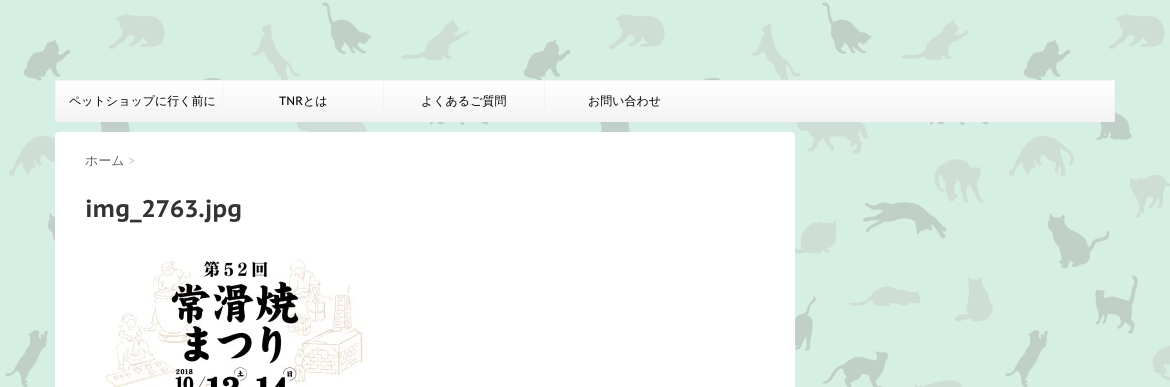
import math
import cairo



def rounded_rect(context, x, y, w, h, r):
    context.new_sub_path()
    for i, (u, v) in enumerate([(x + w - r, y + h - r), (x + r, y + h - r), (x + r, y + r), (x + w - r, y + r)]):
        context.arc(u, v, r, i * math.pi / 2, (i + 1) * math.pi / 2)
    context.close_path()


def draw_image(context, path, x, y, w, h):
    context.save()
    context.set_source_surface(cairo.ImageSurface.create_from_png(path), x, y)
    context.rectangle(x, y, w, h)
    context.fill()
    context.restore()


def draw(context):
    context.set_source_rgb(1, 1, 1)
    context.paint()
    draw_image(context, "images/1.png", 0, 0, 1170, 387)
    gradient = cairo.LinearGradient(585, 81, 585, 121)
    gradient.add_color_stop_rgba(0, 1, 1, 1, 1)
    gradient.add_color_stop_rgba(1, 243 / 255, 243 / 255, 243 / 255, 1)
    context.set_source(gradient)
    context.rectangle(56, 81, 1058, 40)
    context.fill()
    rounded_rect(context, 55.5, 80.5, 1059, 41, 0.5)
    context.set_source_rgb(243 / 255, 243 / 255, 243 / 255)
    context.set_line_width(1)
    context.stroke()
    context.rectangle(222, 81, 1, 40)
    context.fill()
    context.rectangle(383, 81, 1, 40)
    context.fill()
    context.rectangle(544, 81, 1, 40)
    context.fill()
    context.set_source_rgb(1, 1, 1)
    rounded_rect(context, 55, 132, 740, 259, 4)
    context.fill()
    draw_image(context, "images/2.png", 105, 258, 260, 129)
    context.select_font_face("WenQuanYi Zen Hei Medium")
    context.set_font_size(12)
    context.set_source_rgb(0, 0, 0)
    context.move_to(69, 105)
    context.show_text("ペットショップに行く前に")
    context.select_font_face("PT Sans Caption")
    context.move_to(279, 105)
    context.show_text("TNR")
    context.select_font_face("WenQuanYi Zen Hei Medium")
    context.move_to(303, 105)
    context.show_text("とは")
    context.move_to(421, 105)
    context.show_text("よくあるご質問")
    context.move_to(588, 105)
    context.show_text("お問い合わせ")
    context.set_font_size(13)
    context.set_source_rgb(102 / 255, 102 / 255, 102 / 255)
    context.move_to(85, 165)
    context.show_text("ホーム")
    context.select_font_face("PT Sans Caption")
    context.set_source_rgb(204 / 255, 204 / 255, 204 / 255)
    context.move_to(128, 165)
    context.show_text(">")
    context.select_font_face("PT Sans Caption", cairo.FontSlant.NORMAL, cairo.FontWeight.BOLD)
    context.set_font_size(24)
    context.set_source_rgb(51 / 255, 51 / 255, 51 / 255)
    context.move_to(85, 217)
    context.show_text("img_2763.jpg")


surface = cairo.ImageSurface(cairo.Format.RGB24, 1170, 387)
context = cairo.Context(surface)
options = cairo.FontOptions()
options.set_hint_metrics(cairo.HintMetrics.OFF)
options.set_hint_style(cairo.HintStyle.NONE)
context.set_font_options(options)
context.set_miter_limit(4)
draw(context)
surface.write_to_png("out.png")
